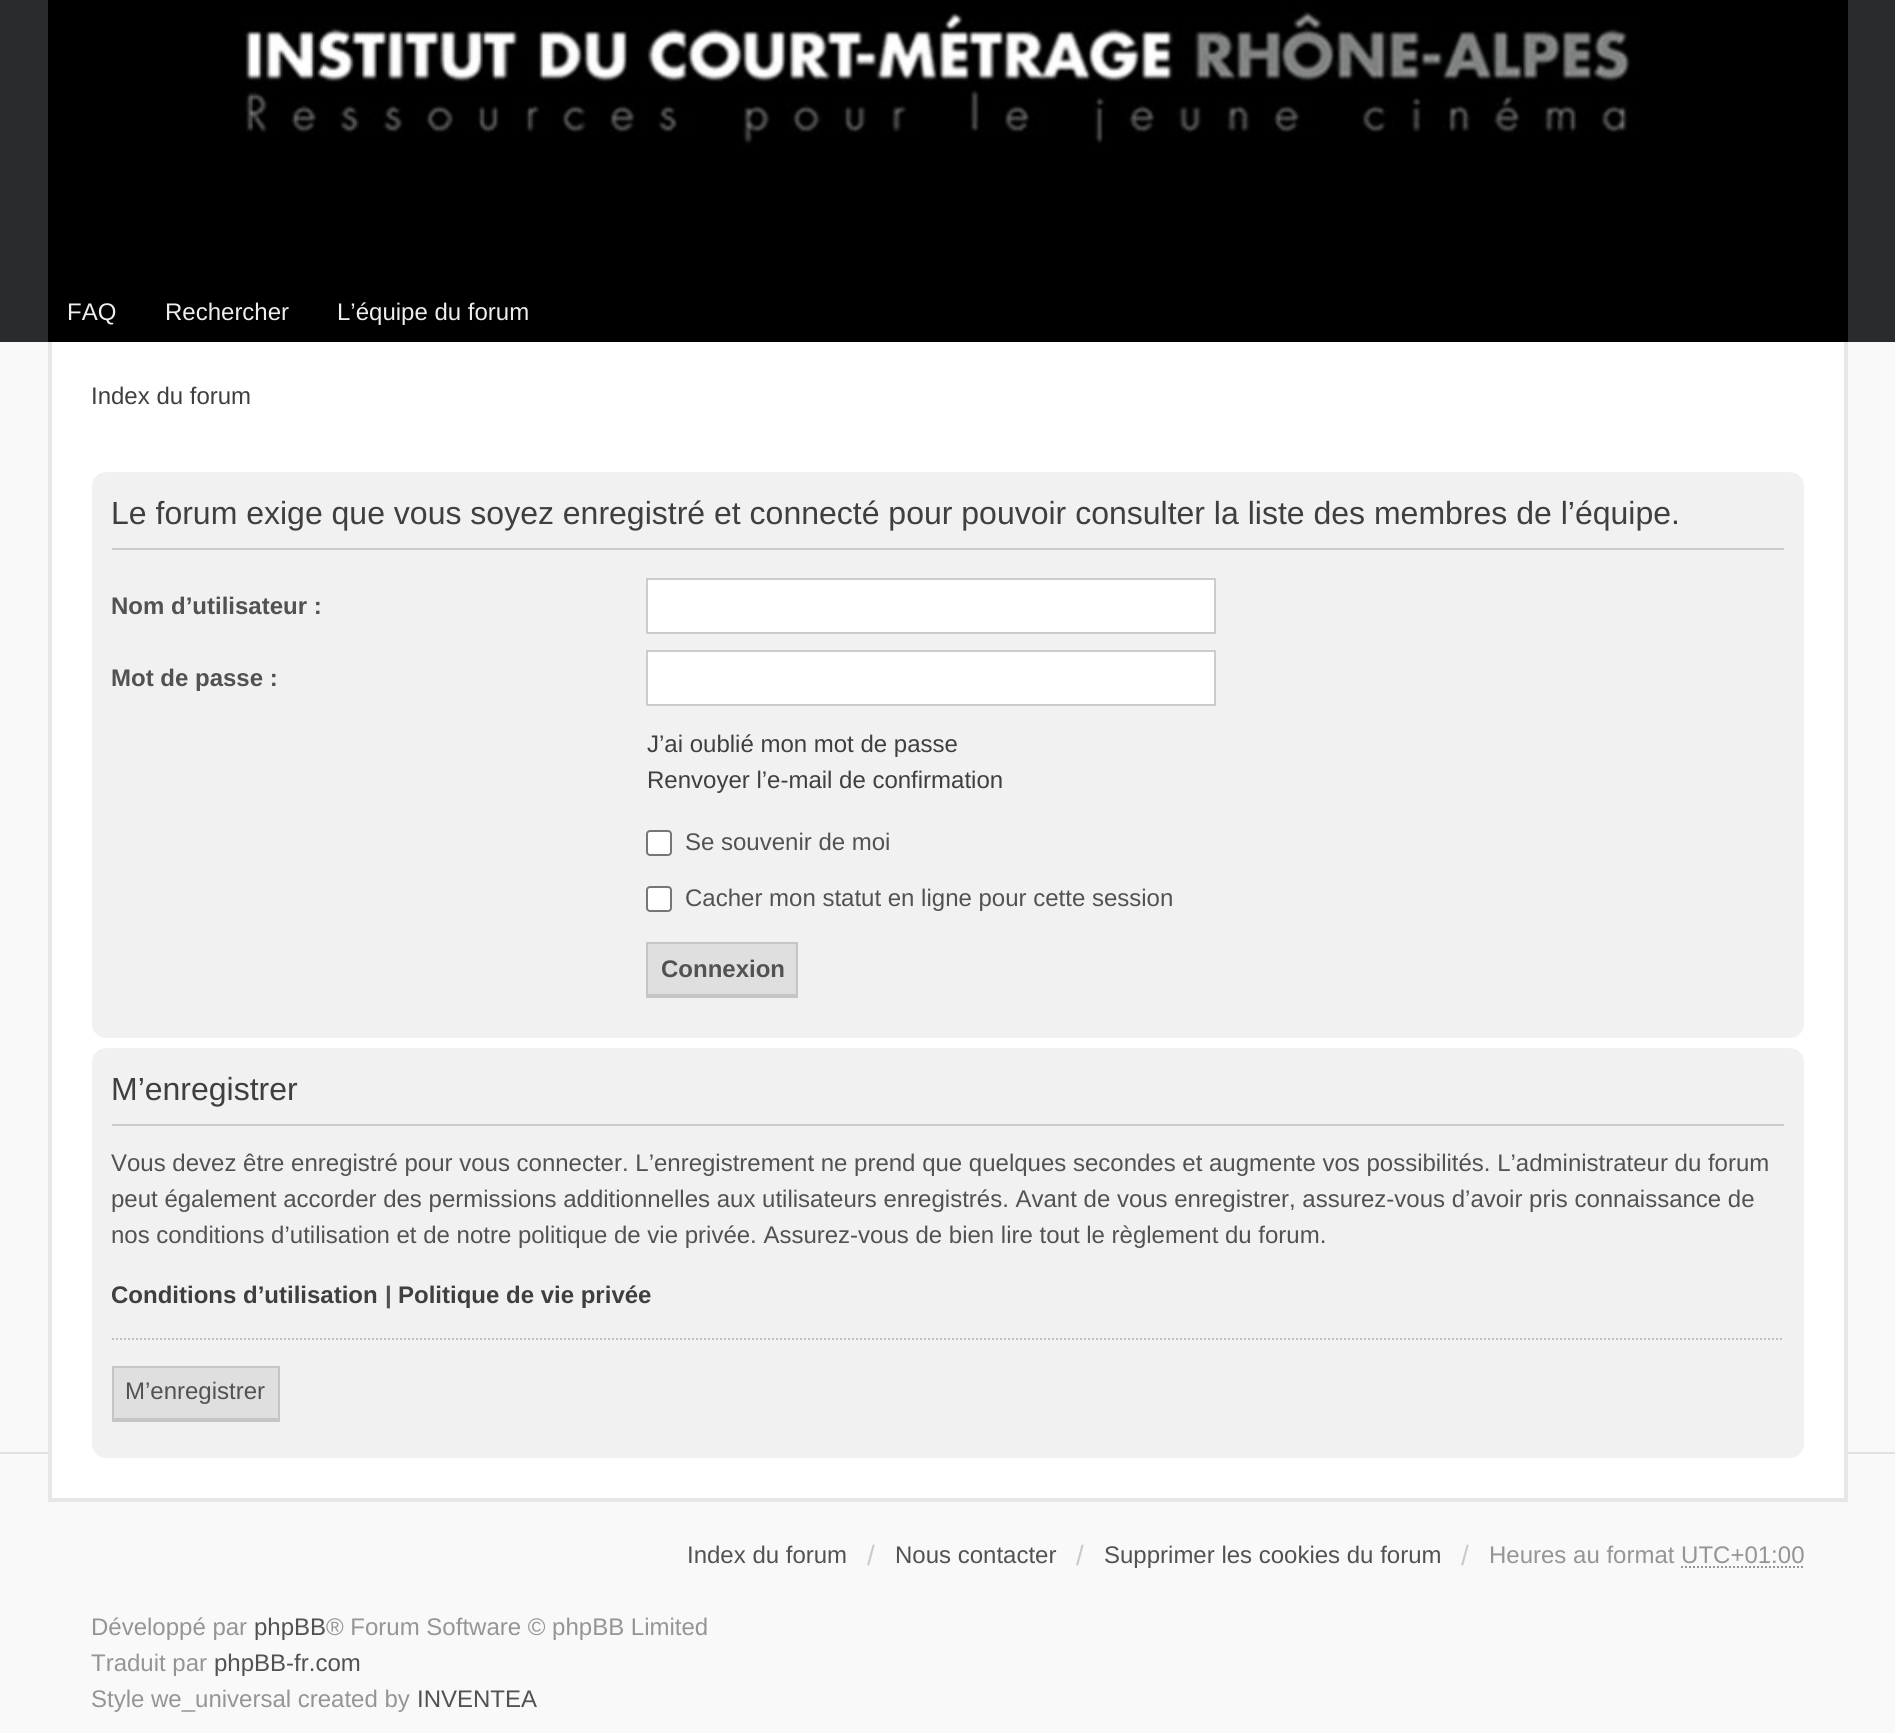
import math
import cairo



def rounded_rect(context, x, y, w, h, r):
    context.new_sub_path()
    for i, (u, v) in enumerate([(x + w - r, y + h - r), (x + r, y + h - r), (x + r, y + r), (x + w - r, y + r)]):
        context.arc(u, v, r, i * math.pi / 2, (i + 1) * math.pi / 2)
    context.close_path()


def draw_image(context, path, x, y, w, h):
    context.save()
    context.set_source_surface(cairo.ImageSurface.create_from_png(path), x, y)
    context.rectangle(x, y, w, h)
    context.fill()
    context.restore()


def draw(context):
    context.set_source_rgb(249 / 255, 249 / 255, 249 / 255)
    context.paint()
    context.set_source_rgb(41 / 255, 44 / 255, 47 / 255)
    context.rectangle(0, 0, 1895, 342)
    context.fill()
    draw_image(context, "images/1.png", 48, 0, 1800, 342)
    context.set_source_rgb(226 / 255, 226 / 255, 226 / 255)
    context.rectangle(0, 1452, 1895, 2)
    context.fill()
    context.set_source_rgb(1, 1, 1)
    context.rectangle(52, 342, 1792, 1156)
    context.fill()
    context.set_source_rgb(231 / 255, 231 / 255, 231 / 255)
    context.rectangle(1844, 342, 4, 1160)
    context.fill()
    context.rectangle(48, 1498, 1800, 4)
    context.fill()
    context.rectangle(48, 342, 4, 1160)
    context.fill()
    context.set_source_rgb(241 / 255, 241 / 255, 241 / 255)
    rounded_rect(context, 92, 472, 1712, 566, 14)
    context.fill()
    context.set_source_rgb(204 / 255, 204 / 255, 204 / 255)
    context.rectangle(112, 548, 1672, 2)
    context.fill()
    context.set_source_rgb(1, 1, 1)
    context.rectangle(647, 579, 568, 54)
    context.fill_preserve()
    context.set_source_rgb(204 / 255, 204 / 255, 204 / 255)
    context.stroke()
    context.set_source_rgb(1, 1, 1)
    context.rectangle(647, 651, 568, 54)
    context.fill_preserve()
    context.set_source_rgb(204 / 255, 204 / 255, 204 / 255)
    context.stroke()
    context.set_source_rgb(1, 1, 1)
    rounded_rect(context, 647, 831, 24, 24, 3)
    context.fill_preserve()
    context.set_source_rgb(118 / 255, 118 / 255, 118 / 255)
    context.stroke()
    context.set_source_rgb(1, 1, 1)
    rounded_rect(context, 647, 887, 24, 24, 3)
    context.fill_preserve()
    context.set_source_rgb(118 / 255, 118 / 255, 118 / 255)
    context.stroke()
    context.set_source_rgb(223 / 255, 223 / 255, 223 / 255)
    context.rectangle(648, 944, 148, 50)
    context.fill()
    context.set_source_rgb(197 / 255, 197 / 255, 197 / 255)
    context.rectangle(646, 942, 152, 2)
    context.fill()
    context.rectangle(796, 942, 2, 56)
    context.fill()
    context.rectangle(646, 994, 152, 4)
    context.fill()
    context.rectangle(646, 942, 2, 56)
    context.fill()
    context.set_source_rgb(241 / 255, 241 / 255, 241 / 255)
    rounded_rect(context, 92, 1048, 1712, 410, 14)
    context.fill()
    context.set_source_rgb(204 / 255, 204 / 255, 204 / 255)
    context.rectangle(112, 1124, 1672, 2)
    context.fill()
    context.new_path()
    context.move_to(112, 1339)
    context.line_to(1784, 1339)
    context.set_source_rgb(194 / 255, 194 / 255, 194 / 255)
    context.set_dash([2, 2])
    context.stroke()
    context.set_source_rgb(223 / 255, 223 / 255, 223 / 255)
    context.rectangle(114, 1368, 164, 50)
    context.fill()
    context.set_source_rgb(197 / 255, 197 / 255, 197 / 255)
    context.rectangle(112, 1366, 168, 2)
    context.fill()
    context.rectangle(278, 1366, 2, 56)
    context.fill()
    context.rectangle(112, 1418, 168, 4)
    context.fill()
    context.rectangle(112, 1366, 2, 56)
    context.fill()
    context.new_path()
    context.move_to(1681, 1567)
    context.line_to(1804.5, 1567)
    context.set_source_rgb(149 / 255, 149 / 255, 149 / 255)
    context.stroke()
    context.select_font_face("Liberation Sans")
    context.set_font_size(24)
    context.set_source_rgb(238 / 255, 238 / 255, 238 / 255)
    context.move_to(67, 320)
    context.show_text("FAQ")
    context.move_to(165, 320)
    context.show_text("Rechercher")
    context.move_to(337, 320)
    context.show_text("L’équipe du forum")
    context.set_source_rgb(63 / 255, 63 / 255, 63 / 255)
    context.move_to(91, 404)
    context.show_text("Index du forum")
    context.set_font_size(32)
    context.move_to(111, 524)
    context.show_text("Le forum exige que vous soyez enregistré et connecté pour pouvoir consulter la liste des membres de l’équipe.")
    context.select_font_face("Liberation Sans", cairo.FontSlant.NORMAL, cairo.FontWeight.BOLD)
    context.set_font_size(24)
    context.set_source_rgb(82 / 255, 82 / 255, 82 / 255)
    context.move_to(111, 614)
    context.show_text("Nom d’utilisateur :")
    context.move_to(111, 686)
    context.show_text("Mot de passe :")
    context.select_font_face("Liberation Sans")
    context.set_source_rgb(63 / 255, 63 / 255, 63 / 255)
    context.move_to(647, 752)
    context.show_text("J’ai oublié mon mot de passe")
    context.move_to(647, 788)
    context.show_text("Renvoyer l’e-mail de confirmation")
    context.set_source_rgb(82 / 255, 82 / 255, 82 / 255)
    context.move_to(685, 850)
    context.show_text("Se souvenir de moi")
    context.move_to(685, 906)
    context.show_text("Cacher mon statut en ligne pour cette session")
    context.select_font_face("Liberation Sans", cairo.FontSlant.NORMAL, cairo.FontWeight.BOLD)
    context.move_to(661, 977)
    context.show_text("Connexion")
    context.select_font_face("Liberation Sans")
    context.set_font_size(32)
    context.set_source_rgb(63 / 255, 63 / 255, 63 / 255)
    context.move_to(111, 1100)
    context.show_text("M’enregistrer")
    context.set_font_size(24)
    context.set_source_rgb(82 / 255, 82 / 255, 82 / 255)
    context.move_to(111, 1171)
    context.show_text("Vous devez être enregistré pour vous connecter. L’enregistrement ne prend que quelques secondes et augmente vos possibilités. L’administrateur du forum")
    context.move_to(111, 1207)
    context.show_text("peut également accorder des permissions additionnelles aux utilisateurs enregistrés. Avant de vous enregistrer, assurez-vous d’avoir pris connaissance de")
    context.move_to(111, 1243)
    context.show_text("nos conditions d’utilisation et de notre politique de vie privée. Assurez-vous de bien lire tout le règlement du forum.")
    context.select_font_face("Liberation Sans", cairo.FontSlant.NORMAL, cairo.FontWeight.BOLD)
    context.set_source_rgb(63 / 255, 63 / 255, 63 / 255)
    context.move_to(111, 1303)
    context.show_text("Conditions d’utilisation")
    context.set_source_rgb(82 / 255, 82 / 255, 82 / 255)
    context.move_to(385, 1303)
    context.show_text("|")
    context.set_source_rgb(63 / 255, 63 / 255, 63 / 255)
    context.move_to(398, 1303)
    context.show_text("Politique de vie privée")
    context.select_font_face("Liberation Sans")
    context.set_source_rgb(82 / 255, 82 / 255, 82 / 255)
    context.move_to(125, 1399)
    context.show_text("M’enregistrer")
    context.move_to(687, 1563)
    context.show_text("Index du forum")
    context.set_font_size(28)
    context.set_source_rgb(202 / 255, 202 / 255, 202 / 255)
    context.move_to(867, 1565)
    context.show_text("/")
    context.set_font_size(24)
    context.set_source_rgb(82 / 255, 82 / 255, 82 / 255)
    context.move_to(895, 1563)
    context.show_text("Nous contacter")
    context.set_font_size(28)
    context.set_source_rgb(202 / 255, 202 / 255, 202 / 255)
    context.move_to(1076, 1565)
    context.show_text("/")
    context.set_font_size(24)
    context.set_source_rgb(82 / 255, 82 / 255, 82 / 255)
    context.move_to(1104, 1563)
    context.show_text("Supprimer les cookies du forum")
    context.set_font_size(28)
    context.set_source_rgb(202 / 255, 202 / 255, 202 / 255)
    context.move_to(1461, 1565)
    context.show_text("/")
    context.set_font_size(24)
    context.set_source_rgb(149 / 255, 149 / 255, 149 / 255)
    context.move_to(1489, 1563)
    context.show_text("Heures au format UTC+01:00")
    context.move_to(91, 1635)
    context.show_text("Développé par")
    context.set_source_rgb(82 / 255, 82 / 255, 82 / 255)
    context.move_to(254, 1635)
    context.show_text("phpBB")
    context.set_source_rgb(149 / 255, 149 / 255, 149 / 255)
    context.move_to(326, 1635)
    context.show_text("® Forum Software © phpBB Limited")
    context.move_to(91, 1671)
    context.show_text("Traduit par")
    context.set_source_rgb(82 / 255, 82 / 255, 82 / 255)
    context.move_to(214, 1671)
    context.show_text("phpBB-fr.com")
    context.set_source_rgb(149 / 255, 149 / 255, 149 / 255)
    context.move_to(91, 1707)
    context.show_text("Style we_universal created by")
    context.set_source_rgb(82 / 255, 82 / 255, 82 / 255)
    context.move_to(417, 1707)
    context.show_text("INVENTEA")


surface = cairo.ImageSurface(cairo.Format.RGB24, 1895, 1733)
context = cairo.Context(surface)
options = cairo.FontOptions()
options.set_hint_metrics(cairo.HintMetrics.OFF)
options.set_hint_style(cairo.HintStyle.NONE)
context.set_font_options(options)
context.set_miter_limit(4)
draw(context)
surface.write_to_png("out.png")
